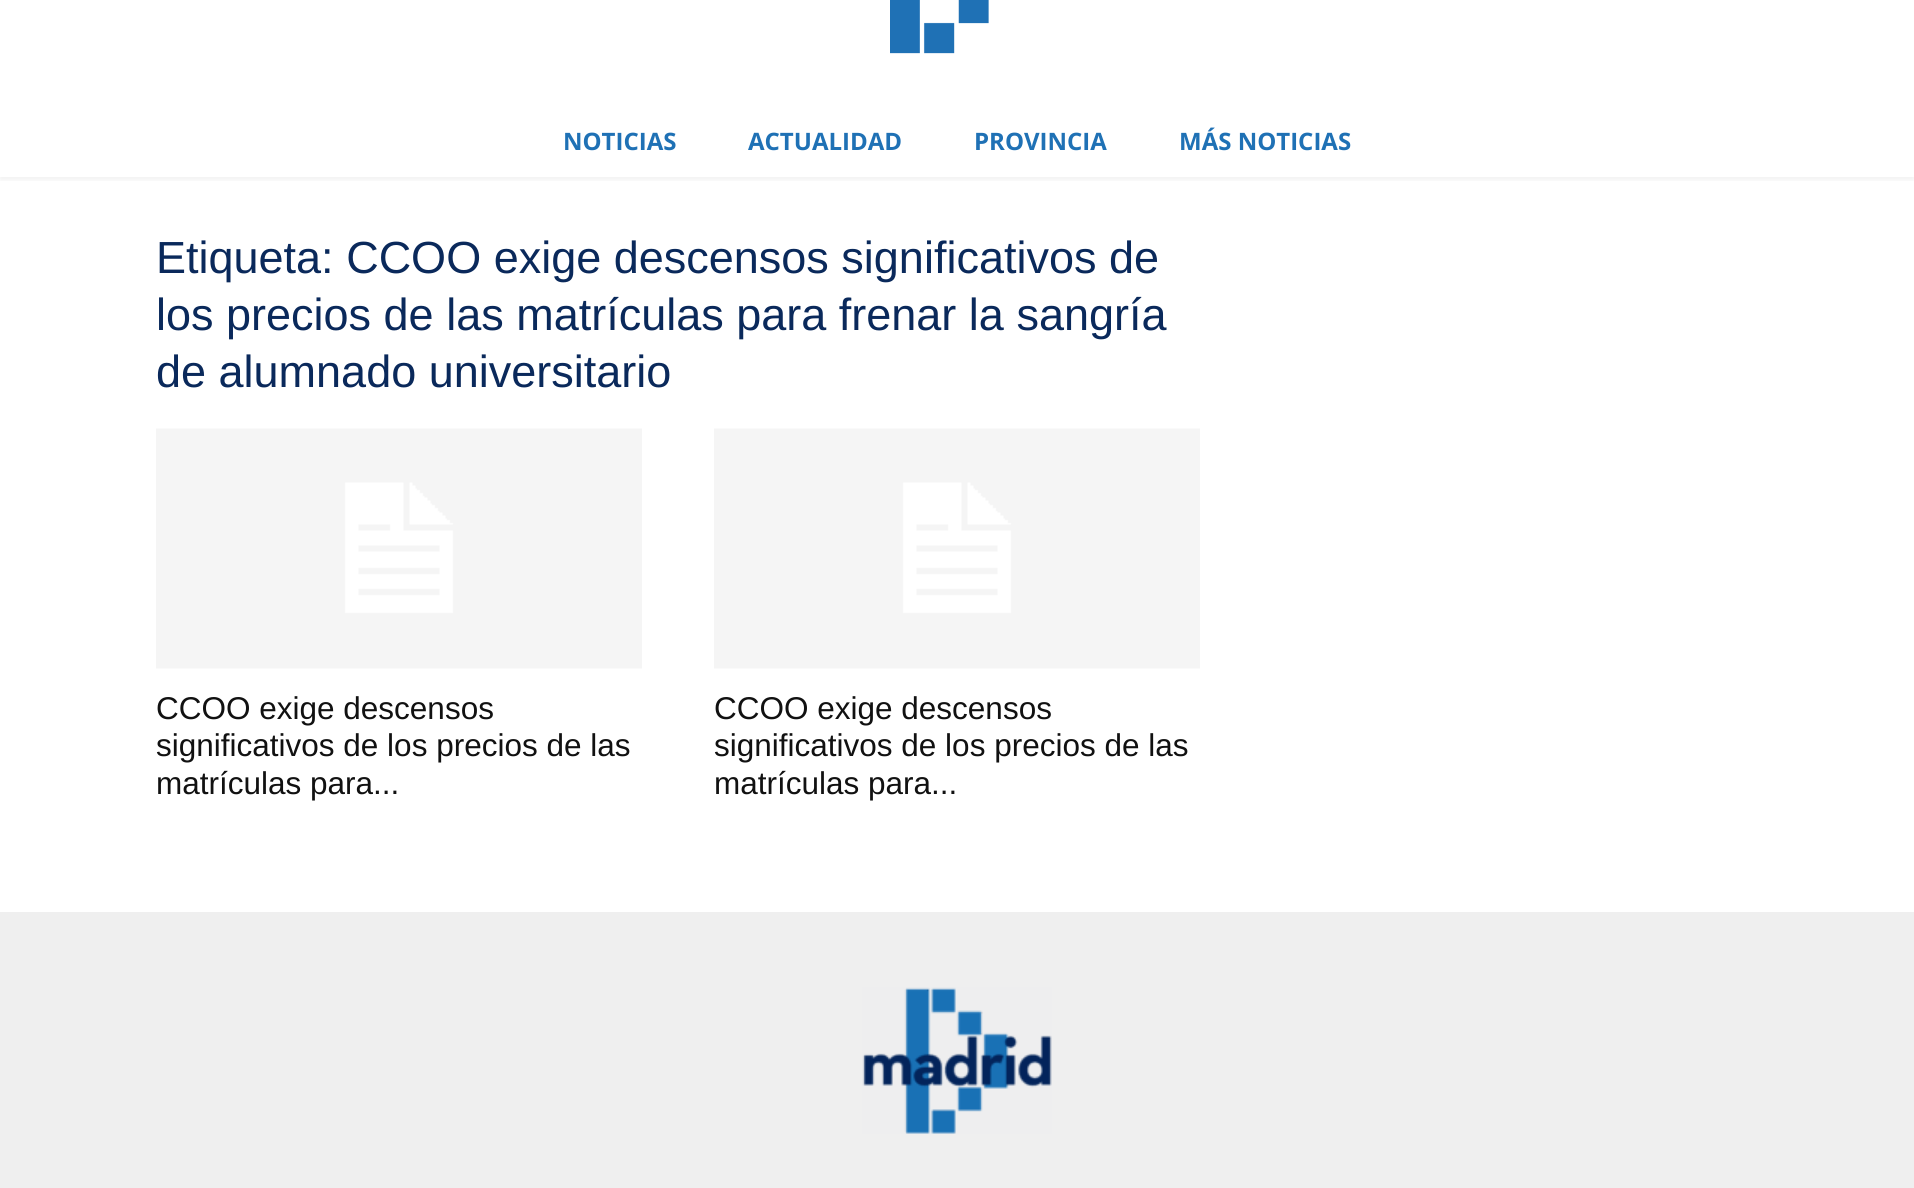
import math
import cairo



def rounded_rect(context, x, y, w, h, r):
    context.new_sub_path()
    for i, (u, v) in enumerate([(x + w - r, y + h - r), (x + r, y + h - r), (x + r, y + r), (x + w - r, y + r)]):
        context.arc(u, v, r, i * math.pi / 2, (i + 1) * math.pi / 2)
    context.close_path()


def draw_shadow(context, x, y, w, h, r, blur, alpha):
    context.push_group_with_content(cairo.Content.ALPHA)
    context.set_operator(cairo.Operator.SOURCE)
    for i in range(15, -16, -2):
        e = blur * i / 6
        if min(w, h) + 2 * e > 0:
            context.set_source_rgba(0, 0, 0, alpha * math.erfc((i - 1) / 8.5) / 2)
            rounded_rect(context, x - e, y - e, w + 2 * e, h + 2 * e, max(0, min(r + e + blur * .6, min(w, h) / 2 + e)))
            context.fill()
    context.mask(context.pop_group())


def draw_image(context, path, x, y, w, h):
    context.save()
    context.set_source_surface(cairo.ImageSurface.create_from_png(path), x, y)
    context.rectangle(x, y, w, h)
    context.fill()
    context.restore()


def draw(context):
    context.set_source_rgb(1, 1, 1)
    context.paint()
    draw_image(context, "images/1.png", 890, 0, 99, 54)
    context.save()
    context.rectangle(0, 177, 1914, 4)
    context.clip()
    context.set_source_rgb(0, 0, 0)
    draw_shadow(context, 0, 60, 1914, 120, 0, 3, 0.06)
    context.restore()
    draw_image(context, "images/2.png", 156, 428, 486, 241)
    draw_image(context, "images/2.png", 714, 428, 486, 241)
    context.set_source_rgb(239 / 255, 239 / 255, 239 / 255)
    context.rectangle(0, 912, 1914, 276)
    context.fill()
    draw_image(context, "images/3.png", 862, 987, 190, 147)
    context.select_font_face("Open Sans", cairo.FontSlant.NORMAL, cairo.FontWeight.BOLD)
    context.set_font_size(24)
    context.set_source_rgb(31 / 255, 113 / 255, 181 / 255)
    context.move_to(563, 150)
    context.show_text("NOTICIAS")
    context.move_to(748, 150)
    context.show_text("ACTUALIDAD")
    context.move_to(974, 150)
    context.show_text("PROVINCIA")
    context.move_to(1179, 150)
    context.show_text("MÁS NOTICIAS")
    context.select_font_face("Liberation Sans")
    context.set_font_size(45)
    context.set_source_rgb(10 / 255, 41 / 255, 91 / 255)
    context.move_to(156, 273)
    context.show_text("Etiqueta: CCOO exige descensos significativos de")
    context.move_to(156, 330)
    context.show_text("los precios de las matrículas para frenar la sangría")
    context.move_to(156, 387)
    context.show_text("de alumnado universitario")
    context.set_font_size(31.5)
    context.set_source_rgb(17 / 255, 17 / 255, 17 / 255)
    context.move_to(156, 719)
    context.show_text("CCOO exige descensos")
    context.move_to(156, 756)
    context.show_text("significativos de los precios de las")
    context.move_to(156, 794)
    context.show_text("matrículas para...")
    context.move_to(714, 719)
    context.show_text("CCOO exige descensos")
    context.move_to(714, 756)
    context.show_text("significativos de los precios de las")
    context.move_to(714, 794)
    context.show_text("matrículas para...")


surface = cairo.ImageSurface(cairo.Format.RGB24, 1914, 1188)
context = cairo.Context(surface)
options = cairo.FontOptions()
options.set_hint_metrics(cairo.HintMetrics.OFF)
options.set_hint_style(cairo.HintStyle.NONE)
context.set_font_options(options)
context.set_miter_limit(4)
draw(context)
surface.write_to_png("out.png")
